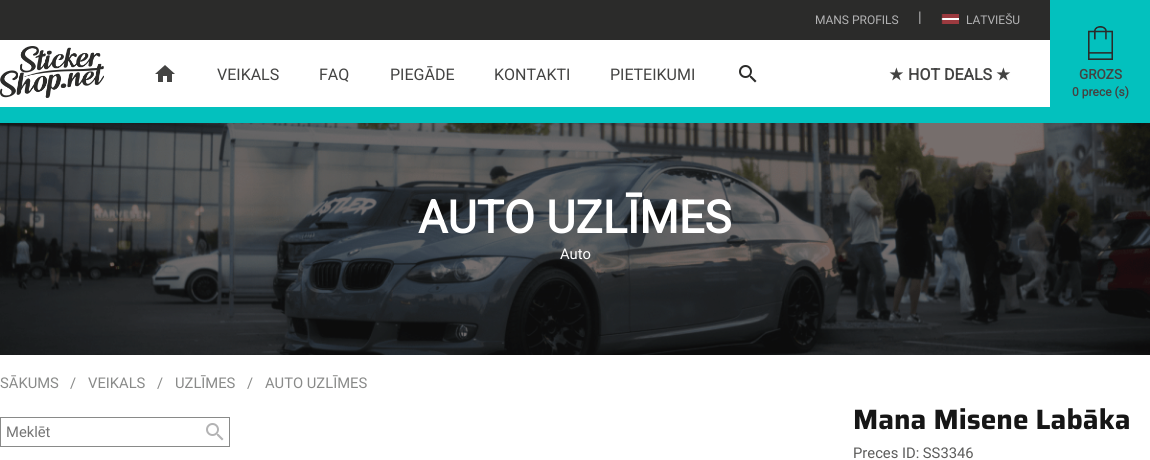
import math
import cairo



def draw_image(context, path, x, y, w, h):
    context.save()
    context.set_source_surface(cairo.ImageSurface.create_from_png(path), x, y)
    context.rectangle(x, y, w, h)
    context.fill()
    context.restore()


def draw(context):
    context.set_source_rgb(1, 1, 1)
    context.paint()
    context.set_source_rgb(43 / 255, 43 / 255, 42 / 255)
    context.rectangle(0, 0, 1050, 40)
    context.fill()
    draw_image(context, "images/1.png", 941, 14, 18, 10)
    draw_image(context, "images/2.png", 0, 46, 104, 52)
    draw_image(context, "images/3.png", 155, 65, 20, 17)
    draw_image(context, "images/4.png", 739, 65, 18, 18)
    context.set_source_rgb(3 / 255, 193 / 255, 190 / 255)
    context.rectangle(1050, 0, 100, 107)
    context.fill()
    draw_image(context, "images/5.png", 1088, 26, 25, 34)
    context.rectangle(0, 107, 1150, 16)
    context.fill()
    draw_image(context, "images/6.png", 0, 123, 1150, 232)
    context.rectangle(0.5, 417.5, 229, 29)
    context.set_source_rgb(137 / 255, 138 / 255, 137 / 255)
    context.set_line_width(1)
    context.stroke()
    draw_image(context, "images/7.png", 206, 423, 18, 18)
    context.select_font_face("Roboto")
    context.set_font_size(12)
    context.set_source_rgb(179 / 255, 179 / 255, 180 / 255)
    context.move_to(815, 24)
    context.show_text("MANS PROFILS")
    context.set_font_size(14.75)
    context.move_to(918, 22)
    context.show_text("|")
    context.set_font_size(12)
    context.move_to(966, 24)
    context.show_text("LATVIEŠU")
    context.set_font_size(16)
    context.set_source_rgb(67 / 255, 67 / 255, 66 / 255)
    context.move_to(217, 80)
    context.show_text("VEIKALS")
    context.move_to(319, 80)
    context.show_text("FAQ")
    context.move_to(390, 80)
    context.show_text("PIEGĀDE")
    context.move_to(494, 80)
    context.show_text("KONTAKTI")
    context.move_to(610, 80)
    context.show_text("PIETEIKUMI")
    context.select_font_face("DejaVu Sans", cairo.FontSlant.NORMAL, cairo.FontWeight.BOLD)
    context.move_to(889, 80)
    context.show_text("★")
    context.select_font_face("Roboto", cairo.FontSlant.NORMAL, cairo.FontWeight.BOLD)
    context.move_to(908, 80)
    context.show_text("HOT DEALS")
    context.select_font_face("DejaVu Sans", cairo.FontSlant.NORMAL, cairo.FontWeight.BOLD)
    context.move_to(996, 80)
    context.show_text("★")
    context.select_font_face("Roboto", cairo.FontSlant.NORMAL, cairo.FontWeight.BOLD)
    context.set_font_size(13.5)
    context.move_to(1079, 79)
    context.show_text("GROZS")
    context.set_font_size(12)
    context.move_to(1072, 96)
    context.show_text("0 prece (s)")
    context.set_font_size(45.25)
    context.set_source_rgb(1, 1, 1)
    context.move_to(418, 233)
    context.show_text("AUTO UZLĪMES")
    context.select_font_face("Roboto")
    context.set_font_size(14.75)
    context.move_to(560, 259)
    context.show_text("Auto")
    context.set_source_rgb(137 / 255, 138 / 255, 137 / 255)
    context.move_to(0, 388)
    context.show_text("SĀKUMS")
    context.move_to(70, 388)
    context.show_text("/")
    context.move_to(88, 388)
    context.show_text("VEIKALS")
    context.move_to(157, 388)
    context.show_text("/")
    context.move_to(175, 388)
    context.show_text("UZLĪMES")
    context.move_to(247, 388)
    context.show_text("/")
    context.move_to(265, 388)
    context.show_text("AUTO UZLĪMES")
    context.set_source_rgb(117 / 255, 117 / 255, 117 / 255)
    context.move_to(6, 437)
    context.show_text("Meklēt")
    context.select_font_face("Saira", cairo.FontSlant.NORMAL, cairo.FontWeight.BOLD)
    context.set_font_size(28)
    context.set_source_rgb(22 / 255, 22 / 255, 22 / 255)
    context.move_to(853, 429)
    context.show_text("Mana Misene Labāka")
    context.select_font_face("Roboto")
    context.set_font_size(14.75)
    context.set_source_rgb(92 / 255, 92 / 255, 91 / 255)
    context.move_to(853, 458)
    context.show_text("Preces ID: SS3346")


surface = cairo.ImageSurface(cairo.Format.RGB24, 1150, 460)
context = cairo.Context(surface)
options = cairo.FontOptions()
options.set_hint_metrics(cairo.HintMetrics.OFF)
options.set_hint_style(cairo.HintStyle.NONE)
context.set_font_options(options)
context.set_miter_limit(4)
draw(context)
surface.write_to_png("out.png")
